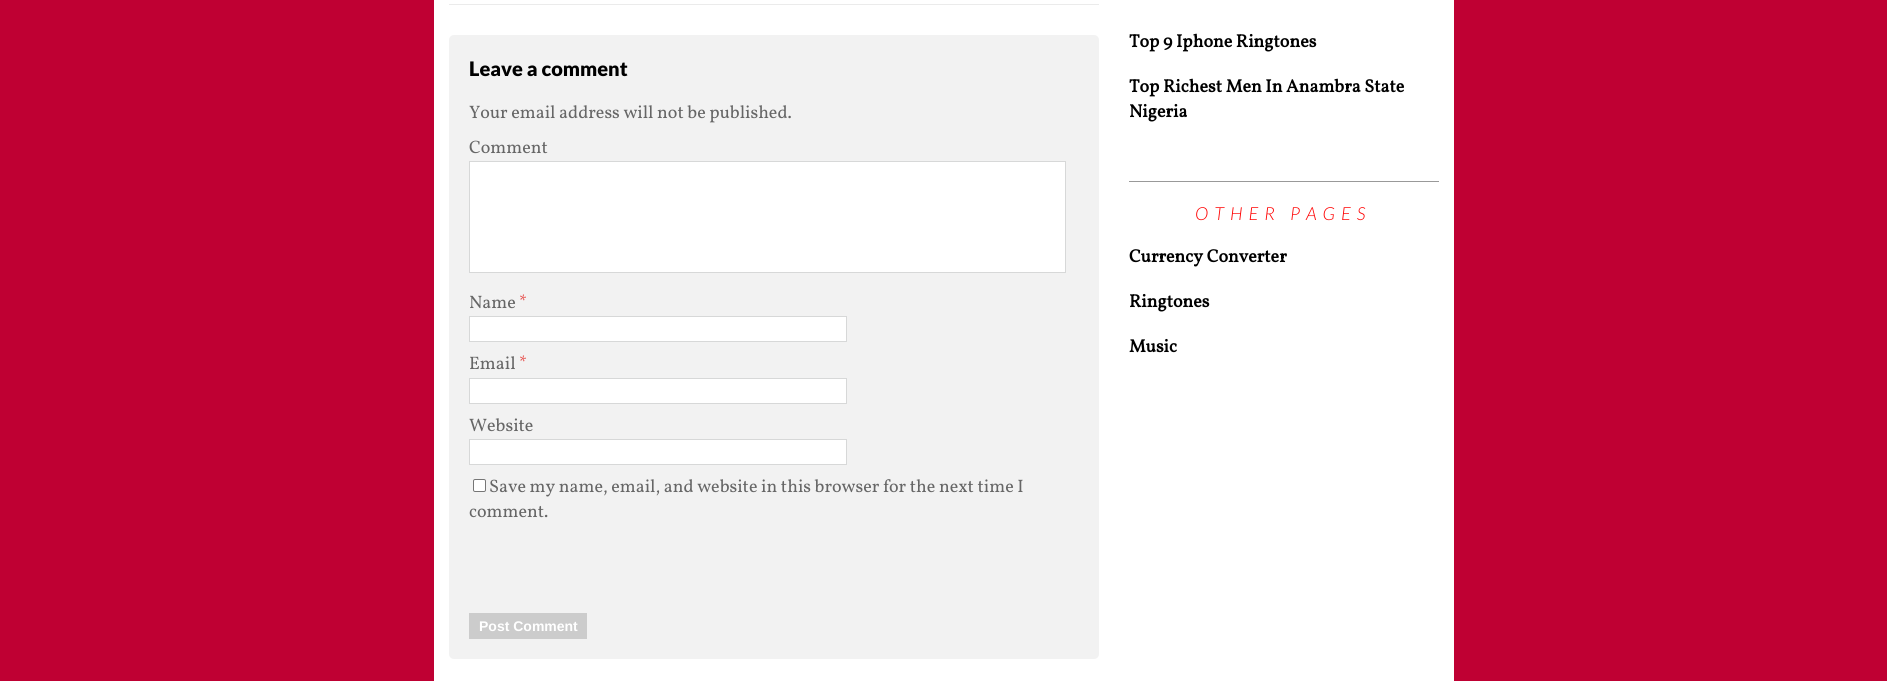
import math
import cairo



def draw_spaced(context, x, y, s, letter, word):
    context.move_to(x, y)
    for ch in s:
        context.show_text(ch)
        context.rel_move_to(letter + word * (ch == ' '), 0)


def rounded_rect(context, x, y, w, h, r):
    context.new_sub_path()
    for i, (u, v) in enumerate([(x + w - r, y + h - r), (x + r, y + h - r), (x + r, y + r), (x + w - r, y + r)]):
        context.arc(u, v, r, i * math.pi / 2, (i + 1) * math.pi / 2)
    context.close_path()


def draw(context):
    context.set_source_rgb(191 / 255, 0, 51 / 255)
    context.paint()
    context.set_source_rgb(1, 1, 1)
    context.rectangle(434, 0, 1020, 681)
    context.fill()
    context.set_source_rgb(235 / 255, 235 / 255, 235 / 255)
    context.rectangle(449, 4, 650, 1)
    context.fill()
    context.set_source_rgb(242 / 255, 242 / 255, 242 / 255)
    rounded_rect(context, 449, 35, 650, 624, 5)
    context.fill()
    context.set_source_rgb(1, 1, 1)
    context.rectangle(469.5, 161.5, 596, 111)
    context.fill_preserve()
    context.set_source_rgb(215 / 255, 216 / 255, 216 / 255)
    context.set_line_width(1)
    context.stroke()
    context.set_source_rgb(1, 1, 1)
    context.rectangle(469.5, 316.5, 377, 25)
    context.fill_preserve()
    context.set_source_rgb(215 / 255, 216 / 255, 216 / 255)
    context.stroke()
    context.set_source_rgb(1, 1, 1)
    context.rectangle(469.5, 378.5, 377, 25)
    context.fill_preserve()
    context.set_source_rgb(215 / 255, 216 / 255, 216 / 255)
    context.stroke()
    context.set_source_rgb(1, 1, 1)
    context.rectangle(469.5, 439.5, 377, 25)
    context.fill_preserve()
    context.set_source_rgb(215 / 255, 216 / 255, 216 / 255)
    context.stroke()
    context.set_source_rgb(1, 1, 1)
    rounded_rect(context, 473.5, 479.5, 12, 12, 1.5)
    context.fill_preserve()
    context.set_source_rgb(118 / 255, 118 / 255, 118 / 255)
    context.stroke()
    context.set_source_rgb(204 / 255, 204 / 255, 204 / 255)
    context.rectangle(469, 613, 118, 26)
    context.fill()
    context.set_source_rgb(153 / 255, 153 / 255, 153 / 255)
    context.rectangle(1129, 181, 310, 1)
    context.fill()
    context.select_font_face("Lato Black")
    context.set_font_size(20)
    context.set_source_rgb(0, 0, 0)
    context.move_to(469, 76)
    context.show_text("Leave a comment")
    context.select_font_face("Vollkorn")
    context.set_font_size(18)
    context.set_source_rgb(102 / 255, 102 / 255, 102 / 255)
    context.move_to(469, 118)
    context.show_text("Your email address will not be published.")
    context.move_to(469, 153)
    context.show_text("Comment")
    context.move_to(469, 308)
    context.show_text("Name")
    context.set_source_rgb(230 / 255, 73 / 255, 70 / 255)
    context.move_to(519, 308)
    context.show_text("*")
    context.set_source_rgb(102 / 255, 102 / 255, 102 / 255)
    context.move_to(469, 369)
    context.show_text("Email")
    context.set_source_rgb(230 / 255, 73 / 255, 70 / 255)
    context.move_to(519, 369)
    context.show_text("*")
    context.set_source_rgb(102 / 255, 102 / 255, 102 / 255)
    context.move_to(469, 431)
    context.show_text("Website")
    context.move_to(489, 492)
    context.show_text("Save my name, email, and website in this browser for the next time I")
    context.move_to(469, 517)
    context.show_text("comment.")
    context.select_font_face("Liberation Sans", cairo.FontSlant.NORMAL, cairo.FontWeight.BOLD)
    context.set_font_size(14)
    context.set_source_rgb(1, 1, 1)
    context.move_to(479, 631)
    context.show_text("Post Comment")
    context.select_font_face("Vollkorn", cairo.FontSlant.NORMAL, cairo.FontWeight.BOLD)
    context.set_font_size(18)
    context.set_source_rgb(0, 0, 0)
    context.move_to(1129, 47)
    context.show_text("Top 9 Iphone Ringtones")
    context.move_to(1129, 92)
    context.show_text("Top Richest Men In Anambra State")
    context.move_to(1129, 117)
    context.show_text("Nigeria")
    context.select_font_face("Lato Light", cairo.FontSlant.ITALIC)
    context.set_source_rgb(1, 0, 0)
    draw_spaced(context, 1195, 220, "OTHER PAGES", 6, 0)
    context.select_font_face("Vollkorn", cairo.FontSlant.NORMAL, cairo.FontWeight.BOLD)
    context.set_source_rgb(0, 0, 0)
    context.move_to(1129, 262)
    context.show_text("Currency Converter")
    context.move_to(1129, 307)
    context.show_text("Ringtones")
    context.move_to(1129, 352)
    context.show_text("Music")


surface = cairo.ImageSurface(cairo.Format.RGB24, 1887, 681)
context = cairo.Context(surface)
options = cairo.FontOptions()
options.set_hint_metrics(cairo.HintMetrics.OFF)
options.set_hint_style(cairo.HintStyle.NONE)
context.set_font_options(options)
context.set_miter_limit(4)
draw(context)
surface.write_to_png("out.png")
